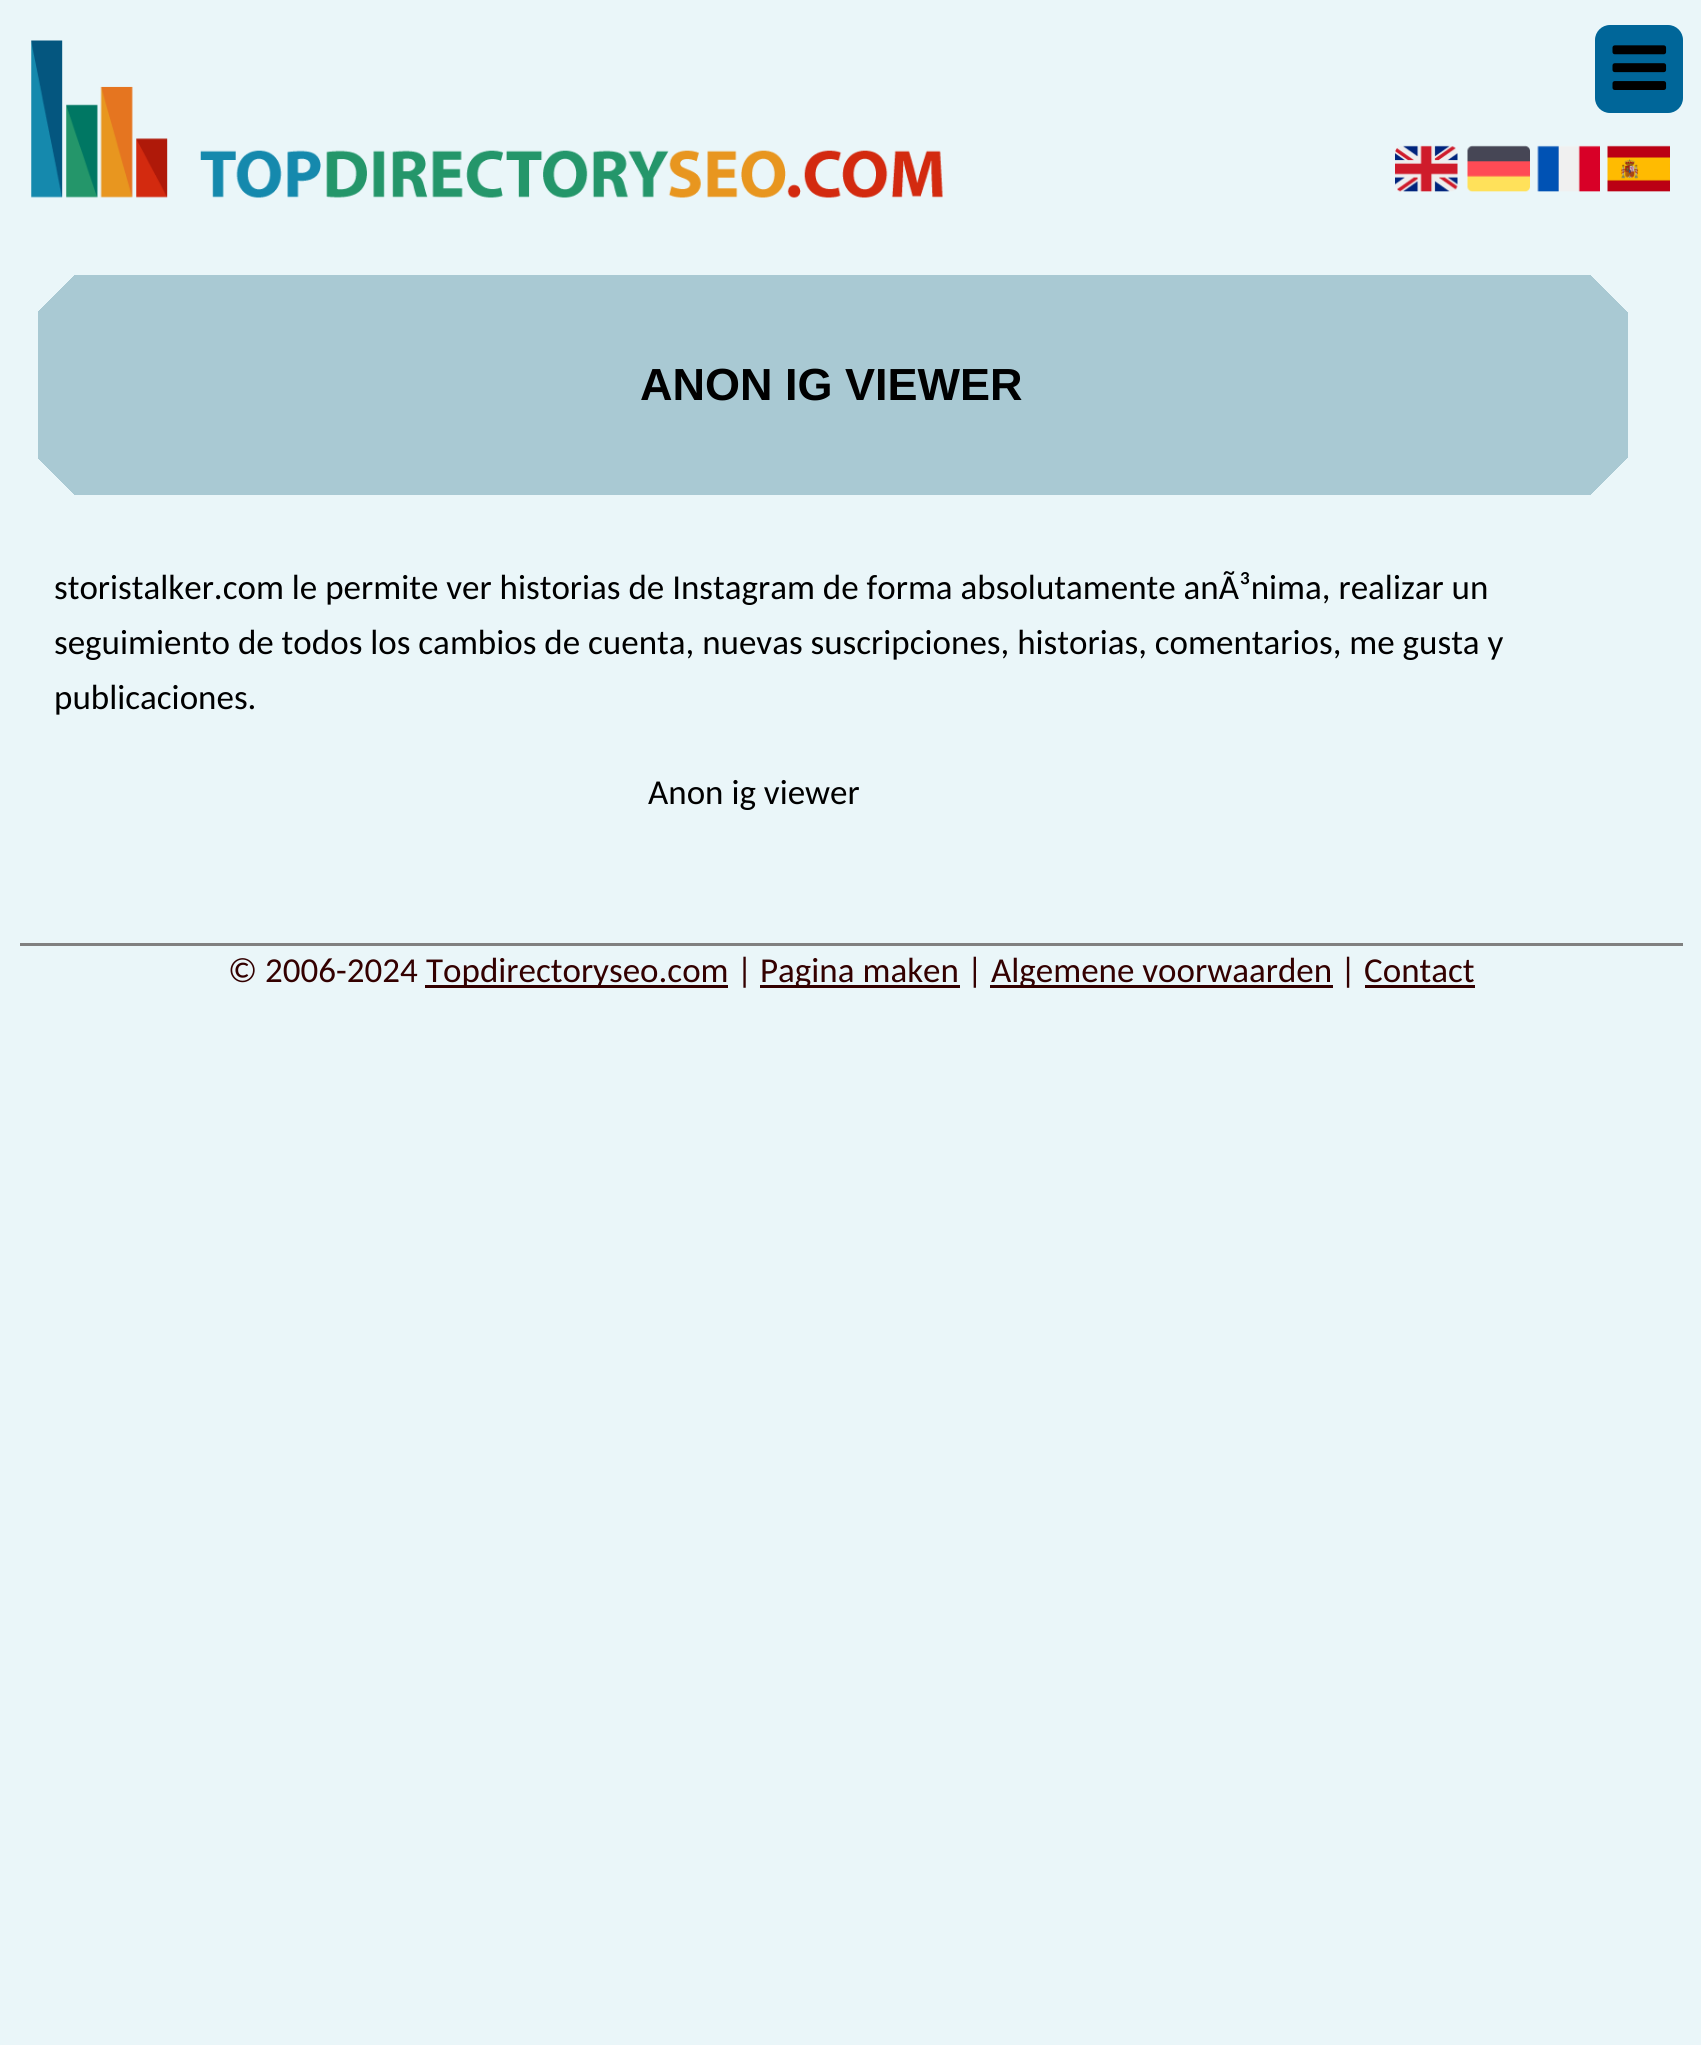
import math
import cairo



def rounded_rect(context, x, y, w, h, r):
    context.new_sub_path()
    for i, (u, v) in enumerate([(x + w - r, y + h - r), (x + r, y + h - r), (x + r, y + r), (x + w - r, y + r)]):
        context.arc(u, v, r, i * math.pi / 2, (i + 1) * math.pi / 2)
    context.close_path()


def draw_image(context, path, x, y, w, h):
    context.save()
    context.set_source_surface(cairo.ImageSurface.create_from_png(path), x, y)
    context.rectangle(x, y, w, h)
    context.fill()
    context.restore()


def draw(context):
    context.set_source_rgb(234 / 255, 246 / 255, 249 / 255)
    context.paint()
    draw_image(context, "images/1.png", 31, 40, 912, 158)
    context.set_source_rgb(0, 102 / 255, 153 / 255)
    rounded_rect(context, 1595, 25, 88, 88, 15)
    context.fill()
    draw_image(context, "images/2.png", 1612, 45, 55, 45)
    draw_image(context, "images/3.png", 1395, 145, 63, 47)
    draw_image(context, "images/4.png", 1467, 145, 63, 47)
    draw_image(context, "images/5.png", 1537, 145, 63, 47)
    draw_image(context, "images/6.png", 1607, 145, 63, 47)
    gradient = cairo.LinearGradient(213, 670, 673, 210)
    gradient.add_color_stop_rgba(0.04, 234 / 255, 246 / 255, 249 / 255, 1)
    gradient.add_color_stop_rgba(0.04, 169 / 255, 201 / 255, 211 / 255, 1)
    context.set_source(gradient)
    context.rectangle(38, 385, 780, 110)
    context.fill()
    gradient = cairo.LinearGradient(1452, 670, 992, 210)
    gradient.add_color_stop_rgba(0.04, 169 / 255, 201 / 255, 211 / 255, 0)
    gradient.add_color_stop_rgba(0.04, 169 / 255, 201 / 255, 211 / 255, 1)
    context.set_source(gradient)
    context.rectangle(818, 385, 810, 110)
    context.fill()
    gradient = cairo.LinearGradient(1452, 100, 992, 560)
    gradient.add_color_stop_rgba(0.04, 234 / 255, 246 / 255, 249 / 255, 1)
    gradient.add_color_stop_rgba(0.04, 169 / 255, 201 / 255, 211 / 255, 1)
    context.set_source(gradient)
    context.rectangle(848, 275, 780, 110)
    context.fill()
    gradient = cairo.LinearGradient(213, 100, 673, 560)
    gradient.add_color_stop_rgba(0.04, 169 / 255, 201 / 255, 211 / 255, 0)
    gradient.add_color_stop_rgba(0.04, 169 / 255, 201 / 255, 211 / 255, 1)
    context.set_source(gradient)
    context.rectangle(38, 275, 810, 110)
    context.fill()
    context.set_source_rgb(128 / 255, 128 / 255, 128 / 255)
    context.rectangle(20, 943, 1663, 3)
    context.fill()
    context.set_source_rgb(51 / 255, 0, 0)
    context.rectangle(425, 985, 303, 3)
    context.fill()
    context.rectangle(760, 985, 200, 3)
    context.fill()
    context.rectangle(990, 985, 343, 3)
    context.fill()
    context.rectangle(1365, 985, 110, 3)
    context.fill()
    context.select_font_face("Liberation Sans", cairo.FontSlant.NORMAL, cairo.FontWeight.BOLD)
    context.set_font_size(45)
    context.set_source_rgb(0, 0, 0)
    context.move_to(640, 400)
    context.show_text("ANON IG VIEWER")
    context.select_font_face("Carlito")
    context.set_font_size(35)
    context.move_to(54, 599)
    context.show_text("storistalker.com le permite ver historias de Instagram de forma absolutamente anÃ³nima, realizar un")
    context.move_to(54, 654)
    context.show_text("seguimiento de todos los cambios de cuenta, nuevas suscripciones, historias, comentarios, me gusta y")
    context.move_to(54, 709)
    context.show_text("publicaciones.")
    context.move_to(648, 804)
    context.show_text("Anon ig viewer")
    context.set_source_rgb(51 / 255, 0, 0)
    context.move_to(228, 982)
    context.show_text("© 2006-2024")
    context.move_to(426, 982)
    context.show_text("Topdirectoryseo.com |")
    context.move_to(760, 982)
    context.show_text("Pagina maken |")
    context.move_to(991, 982)
    context.show_text("Algemene voorwaarden | Contact")


surface = cairo.ImageSurface(cairo.Format.RGB24, 1701, 2045)
context = cairo.Context(surface)
options = cairo.FontOptions()
options.set_hint_metrics(cairo.HintMetrics.OFF)
options.set_hint_style(cairo.HintStyle.NONE)
context.set_font_options(options)
context.set_miter_limit(4)
draw(context)
surface.write_to_png("out.png")
